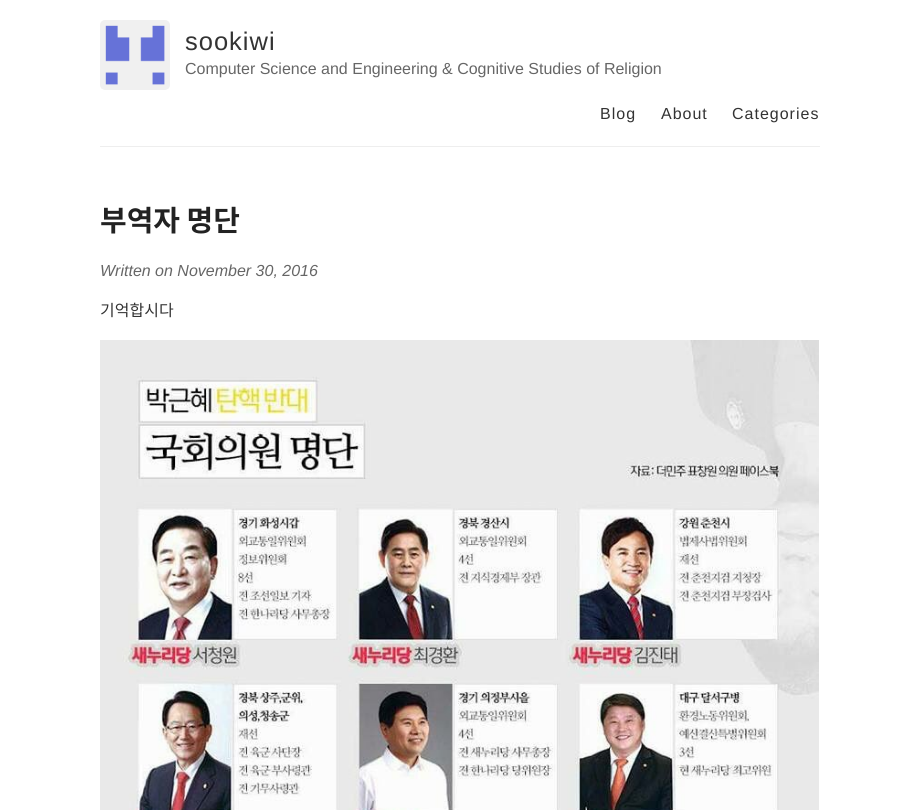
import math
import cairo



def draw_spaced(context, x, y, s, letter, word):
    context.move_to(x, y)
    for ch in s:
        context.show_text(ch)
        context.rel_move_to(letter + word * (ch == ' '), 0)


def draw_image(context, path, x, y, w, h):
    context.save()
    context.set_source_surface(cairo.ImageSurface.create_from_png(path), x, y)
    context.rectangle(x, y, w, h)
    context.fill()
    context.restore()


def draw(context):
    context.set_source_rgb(1, 1, 1)
    context.paint()
    context.set_source_rgb(238 / 255, 238 / 255, 238 / 255)
    context.rectangle(100, 146, 720, 1)
    context.fill()
    draw_image(context, "images/1.png", 100, 20, 70, 70)
    draw_image(context, "images/2.png", 100, 340, 719, 470)
    context.select_font_face("Liberation Sans")
    context.set_font_size(25.5)
    context.set_source_rgb(51 / 255, 51 / 255, 51 / 255)
    draw_spaced(context, 185, 50, "sookiwi", 1, 0)
    context.set_font_size(16)
    context.set_source_rgb(102 / 255, 102 / 255, 102 / 255)
    context.move_to(185, 74)
    context.show_text("Computer Science and Engineering & Cognitive Studies of Religion")
    context.set_source_rgb(51 / 255, 51 / 255, 51 / 255)
    draw_spaced(context, 600, 119, "Blog", 1, 0)
    draw_spaced(context, 661, 119, "About", 1, 0)
    draw_spaced(context, 732, 119, "Categories", 1, 0)
    context.select_font_face("Noto Sans KR", cairo.FontSlant.NORMAL, cairo.FontWeight.BOLD)
    context.set_font_size(29)
    context.set_source_rgb(34 / 255, 34 / 255, 34 / 255)
    context.move_to(100, 231)
    context.show_text("부역자 명단")
    context.select_font_face("Liberation Sans", cairo.FontSlant.ITALIC)
    context.set_font_size(16)
    context.set_source_rgb(102 / 255, 102 / 255, 102 / 255)
    context.move_to(100, 276)
    context.show_text("Written on November 30, 2016")
    context.select_font_face("Noto Sans KR")
    context.set_source_rgb(51 / 255, 51 / 255, 51 / 255)
    context.move_to(100, 316)
    context.show_text("기억합시다")


surface = cairo.ImageSurface(cairo.Format.RGB24, 919, 810)
context = cairo.Context(surface)
options = cairo.FontOptions()
options.set_hint_metrics(cairo.HintMetrics.OFF)
options.set_hint_style(cairo.HintStyle.NONE)
context.set_font_options(options)
context.set_miter_limit(4)
draw(context)
surface.write_to_png("out.png")
